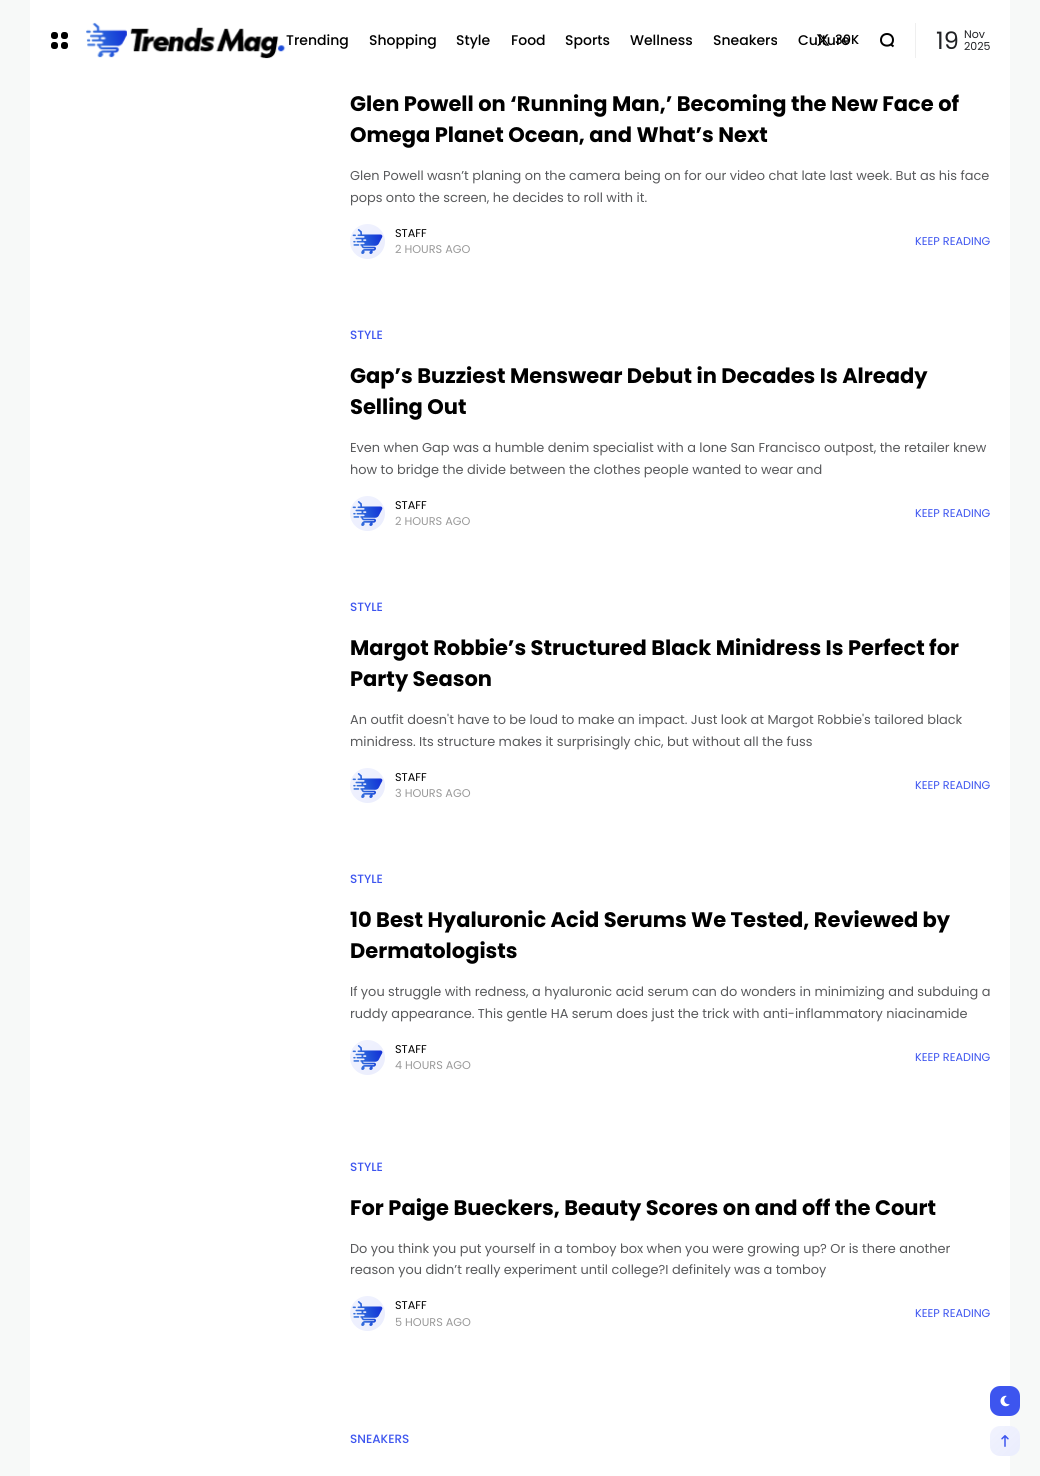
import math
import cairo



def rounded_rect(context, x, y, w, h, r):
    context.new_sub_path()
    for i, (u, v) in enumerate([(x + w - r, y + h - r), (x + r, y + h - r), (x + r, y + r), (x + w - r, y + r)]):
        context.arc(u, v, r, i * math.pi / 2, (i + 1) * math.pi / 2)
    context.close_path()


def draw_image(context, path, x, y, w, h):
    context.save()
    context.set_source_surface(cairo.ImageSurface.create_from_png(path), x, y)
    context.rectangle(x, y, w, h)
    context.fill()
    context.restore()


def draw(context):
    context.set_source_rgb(247 / 255, 249 / 255, 248 / 255)
    context.paint()
    context.set_source_rgb(1, 1, 1)
    context.rectangle(30, 0, 980, 1476)
    context.fill()
    draw_image(context, "images/1.png", 51, 32, 17, 17)
    draw_image(context, "images/2.png", 86, 22, 200, 37)
    draw_image(context, "images/3.png", 816, 34, 14, 12)
    context.new_path()
    context.move_to(881, 40)
    context.curve_to(881, 47.5, 893, 47.5, 893, 40)
    context.curve_to(893, 32, 881, 32, 881, 40)
    context.move_to(891, 44.5)
    context.line_to(893.5, 46.5)
    context.set_source_rgb(0, 0, 0)
    context.stroke()
    context.set_source_rgb(239 / 255, 239 / 255, 239 / 255)
    context.rectangle(915, 23, 1, 35)
    context.fill()
    gradient = cairo.LinearGradient(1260, 1134, 280, 154)
    gradient.add_color_stop_rgba(0, 61 / 255, 85 / 255, 239 / 255, 1)
    gradient.add_color_stop_rgba(1, 1, 1, 1, 1)
    context.set_source(gradient)
    context.arc(367.5, 241.5, 17.5, 0, 2 * math.pi)
    context.fill()
    draw_image(context, "images/4.png", 352, 229, 31, 25)
    gradient = cairo.LinearGradient(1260, 1406, 280, 426)
    gradient.add_color_stop_rgba(0, 61 / 255, 85 / 255, 239 / 255, 1)
    gradient.add_color_stop_rgba(1, 1, 1, 1, 1)
    context.set_source(gradient)
    context.arc(367.5, 513.5, 17.5, 0, 2 * math.pi)
    context.fill()
    draw_image(context, "images/4.png", 352, 501, 31, 25)
    gradient = cairo.LinearGradient(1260, 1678, 280, 698)
    gradient.add_color_stop_rgba(0, 61 / 255, 85 / 255, 239 / 255, 1)
    gradient.add_color_stop_rgba(1, 1, 1, 1, 1)
    context.set_source(gradient)
    context.arc(367.5, 785.5, 17.5, 0, 2 * math.pi)
    context.fill()
    draw_image(context, "images/4.png", 352, 773, 31, 25)
    gradient = cairo.LinearGradient(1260, 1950, 280, 970)
    gradient.add_color_stop_rgba(0, 61 / 255, 85 / 255, 239 / 255, 1)
    gradient.add_color_stop_rgba(1, 1, 1, 1, 1)
    context.set_source(gradient)
    context.arc(367.5, 1057.5, 17.5, 0, 2 * math.pi)
    context.fill()
    draw_image(context, "images/4.png", 352, 1045, 31, 25)
    gradient = cairo.LinearGradient(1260, 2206, 280, 1226)
    gradient.add_color_stop_rgba(0, 61 / 255, 85 / 255, 239 / 255, 1)
    gradient.add_color_stop_rgba(1, 1, 1, 1, 1)
    context.set_source(gradient)
    context.arc(367.5, 1313.5, 17.5, 0, 2 * math.pi)
    context.fill()
    draw_image(context, "images/4.png", 352, 1301, 31, 25)
    context.set_source_rgb(61 / 255, 85 / 255, 239 / 255)
    rounded_rect(context, 990, 1386, 30, 30, 10)
    context.fill()
    draw_image(context, "images/5.png", 1000, 1395, 10, 12)
    context.set_source_rgb(1, 1, 1)
    rounded_rect(context, 990, 1426, 30, 30, 10)
    context.fill()
    gradient = cairo.LinearGradient(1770, 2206, 930, 1366)
    gradient.add_color_stop_rgba(0, 61 / 255, 85 / 255, 239 / 255, 1)
    gradient.add_color_stop_rgba(1, 61 / 255, 85 / 255, 239 / 255, 0)
    context.set_source(gradient)
    rounded_rect(context, 990, 1426, 30, 30, 10)
    context.fill()
    draw_image(context, "images/6.png", 1001, 1435, 8, 12)
    context.select_font_face("Poppins Medium")
    context.set_font_size(14)
    context.set_source_rgb(0, 0, 0)
    context.move_to(286, 45)
    context.show_text("Trending")
    context.move_to(369, 45)
    context.show_text("Shopping")
    context.move_to(456, 45)
    context.show_text("Style")
    context.move_to(511, 45)
    context.show_text("Food")
    context.move_to(565, 45)
    context.show_text("Sports")
    context.move_to(630, 45)
    context.show_text("Wellness")
    context.move_to(713, 45)
    context.show_text("Sneakers")
    context.set_font_size(12.9)
    context.move_to(835, 44)
    context.show_text("30K")
    context.set_font_size(14)
    context.move_to(798, 45)
    context.show_text("Culture")
    context.select_font_face("Poppins")
    context.set_font_size(24)
    context.set_source_rgb(32 / 255, 33 / 255, 36 / 255)
    context.move_to(936, 49)
    context.show_text("19")
    context.set_font_size(11)
    context.move_to(964, 38)
    context.show_text("Nov")
    context.move_to(964, 50)
    context.show_text("2025")
    context.select_font_face("Poppins", cairo.FontSlant.NORMAL, cairo.FontWeight.BOLD)
    context.set_font_size(21)
    context.set_source_rgb(0, 0, 0)
    context.move_to(350, 111)
    context.show_text("Glen Powell on ‘Running Man,’ Becoming the New Face of")
    context.move_to(350, 142)
    context.show_text("Omega Planet Ocean, and What’s Next")
    context.select_font_face("Poppins")
    context.set_font_size(12.9)
    context.set_source_rgb(88 / 255, 89 / 255, 91 / 255)
    context.move_to(350, 180)
    context.show_text("Glen Powell wasn’t planing on the camera being on for our video chat late last week. But as his face")
    context.move_to(350, 202)
    context.show_text("pops onto the screen, he decides to roll with it.")
    context.set_font_size(11.25)
    context.set_source_rgb(0, 0, 0)
    context.move_to(395, 237)
    context.show_text("STAFF")
    context.set_source_rgb(153 / 255, 153 / 255, 153 / 255)
    context.move_to(395, 253)
    context.show_text("2 HOURS AGO")
    context.set_source_rgb(61 / 255, 85 / 255, 239 / 255)
    context.move_to(915, 245)
    context.show_text("KEEP READING")
    context.select_font_face("Poppins Medium")
    context.set_font_size(12)
    context.move_to(350, 339)
    context.show_text("STYLE")
    context.select_font_face("Poppins", cairo.FontSlant.NORMAL, cairo.FontWeight.BOLD)
    context.set_font_size(21)
    context.set_source_rgb(0, 0, 0)
    context.move_to(350, 383)
    context.show_text("Gap’s Buzziest Menswear Debut in Decades Is Already")
    context.move_to(350, 414)
    context.show_text("Selling Out")
    context.select_font_face("Poppins")
    context.set_font_size(12.9)
    context.set_source_rgb(88 / 255, 89 / 255, 91 / 255)
    context.move_to(350, 452)
    context.show_text("Even when Gap was a humble denim specialist with a lone San Francisco outpost, the retailer knew")
    context.move_to(350, 474)
    context.show_text("how to bridge the divide between the clothes people wanted to wear and")
    context.set_font_size(11.25)
    context.set_source_rgb(0, 0, 0)
    context.move_to(395, 509)
    context.show_text("STAFF")
    context.set_source_rgb(153 / 255, 153 / 255, 153 / 255)
    context.move_to(395, 525)
    context.show_text("2 HOURS AGO")
    context.set_source_rgb(61 / 255, 85 / 255, 239 / 255)
    context.move_to(915, 517)
    context.show_text("KEEP READING")
    context.select_font_face("Poppins Medium")
    context.set_font_size(12)
    context.move_to(350, 611)
    context.show_text("STYLE")
    context.select_font_face("Poppins", cairo.FontSlant.NORMAL, cairo.FontWeight.BOLD)
    context.set_font_size(21)
    context.set_source_rgb(0, 0, 0)
    context.move_to(350, 655)
    context.show_text("Margot Robbie’s Structured Black Minidress Is Perfect for")
    context.move_to(350, 686)
    context.show_text("Party Season")
    context.select_font_face("Poppins")
    context.set_font_size(12.9)
    context.set_source_rgb(88 / 255, 89 / 255, 91 / 255)
    context.move_to(350, 724)
    context.show_text("An outfit doesn't have to be loud to make an impact. Just look at Margot Robbie's tailored black")
    context.move_to(350, 746)
    context.show_text("minidress. Its structure makes it surprisingly chic, but without all the fuss")
    context.set_font_size(11.25)
    context.set_source_rgb(0, 0, 0)
    context.move_to(395, 781)
    context.show_text("STAFF")
    context.set_source_rgb(153 / 255, 153 / 255, 153 / 255)
    context.move_to(395, 797)
    context.show_text("3 HOURS AGO")
    context.set_source_rgb(61 / 255, 85 / 255, 239 / 255)
    context.move_to(915, 789)
    context.show_text("KEEP READING")
    context.select_font_face("Poppins Medium")
    context.set_font_size(12)
    context.move_to(350, 883)
    context.show_text("STYLE")
    context.select_font_face("Poppins", cairo.FontSlant.NORMAL, cairo.FontWeight.BOLD)
    context.set_font_size(21)
    context.set_source_rgb(0, 0, 0)
    context.move_to(350, 927)
    context.show_text("10 Best Hyaluronic Acid Serums We Tested, Reviewed by")
    context.move_to(350, 958)
    context.show_text("Dermatologists")
    context.select_font_face("Poppins")
    context.set_font_size(12.9)
    context.set_source_rgb(88 / 255, 89 / 255, 91 / 255)
    context.move_to(350, 996)
    context.show_text("If you struggle with redness, a hyaluronic acid serum can do wonders in minimizing and subduing a")
    context.move_to(350, 1018)
    context.show_text("ruddy appearance. This gentle HA serum does just the trick with anti-inflammatory niacinamide")
    context.set_font_size(11.25)
    context.set_source_rgb(0, 0, 0)
    context.move_to(395, 1053)
    context.show_text("STAFF")
    context.set_source_rgb(153 / 255, 153 / 255, 153 / 255)
    context.move_to(395, 1069)
    context.show_text("4 HOURS AGO")
    context.set_source_rgb(61 / 255, 85 / 255, 239 / 255)
    context.move_to(915, 1061)
    context.show_text("KEEP READING")
    context.select_font_face("Poppins Medium")
    context.set_font_size(12)
    context.move_to(350, 1171)
    context.show_text("STYLE")
    context.select_font_face("Poppins", cairo.FontSlant.NORMAL, cairo.FontWeight.BOLD)
    context.set_font_size(21)
    context.set_source_rgb(0, 0, 0)
    context.move_to(350, 1215)
    context.show_text("For Paige Bueckers, Beauty Scores on and off the Court")
    context.select_font_face("Poppins")
    context.set_font_size(12.9)
    context.set_source_rgb(88 / 255, 89 / 255, 91 / 255)
    context.move_to(350, 1253)
    context.show_text("Do you think you put yourself in a tomboy box when you were growing up? Or is there another")
    context.move_to(350, 1274)
    context.show_text("reason you didn’t really experiment until college?I definitely was a tomboy")
    context.set_font_size(11.25)
    context.set_source_rgb(0, 0, 0)
    context.move_to(395, 1309)
    context.show_text("STAFF")
    context.set_source_rgb(153 / 255, 153 / 255, 153 / 255)
    context.move_to(395, 1326)
    context.show_text("5 HOURS AGO")
    context.set_source_rgb(61 / 255, 85 / 255, 239 / 255)
    context.move_to(915, 1317)
    context.show_text("KEEP READING")
    context.select_font_face("Poppins Medium")
    context.set_font_size(12)
    context.move_to(350, 1443)
    context.show_text("SNEAKERS")


surface = cairo.ImageSurface(cairo.Format.RGB24, 1040, 1476)
context = cairo.Context(surface)
options = cairo.FontOptions()
options.set_hint_metrics(cairo.HintMetrics.OFF)
options.set_hint_style(cairo.HintStyle.NONE)
context.set_font_options(options)
context.set_miter_limit(4)
draw(context)
surface.write_to_png("out.png")
